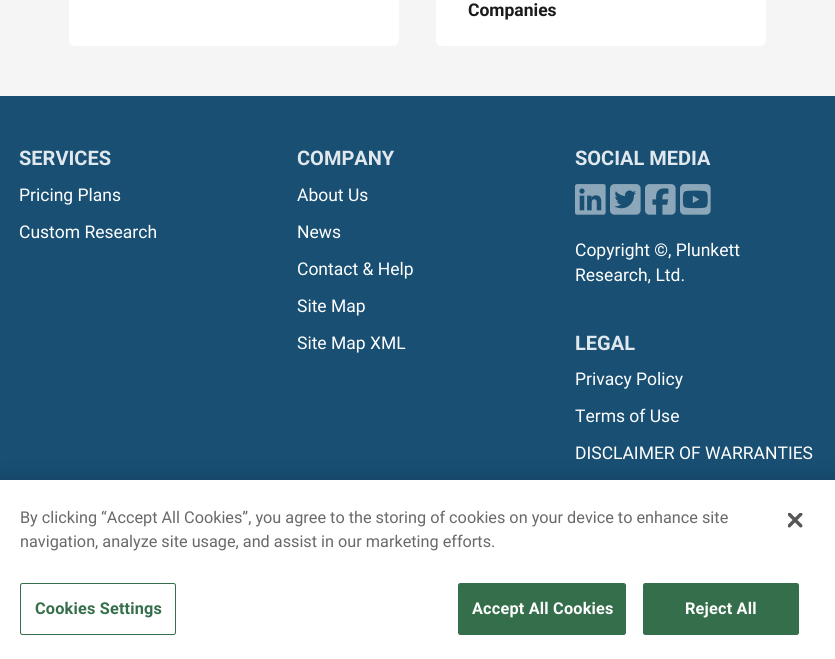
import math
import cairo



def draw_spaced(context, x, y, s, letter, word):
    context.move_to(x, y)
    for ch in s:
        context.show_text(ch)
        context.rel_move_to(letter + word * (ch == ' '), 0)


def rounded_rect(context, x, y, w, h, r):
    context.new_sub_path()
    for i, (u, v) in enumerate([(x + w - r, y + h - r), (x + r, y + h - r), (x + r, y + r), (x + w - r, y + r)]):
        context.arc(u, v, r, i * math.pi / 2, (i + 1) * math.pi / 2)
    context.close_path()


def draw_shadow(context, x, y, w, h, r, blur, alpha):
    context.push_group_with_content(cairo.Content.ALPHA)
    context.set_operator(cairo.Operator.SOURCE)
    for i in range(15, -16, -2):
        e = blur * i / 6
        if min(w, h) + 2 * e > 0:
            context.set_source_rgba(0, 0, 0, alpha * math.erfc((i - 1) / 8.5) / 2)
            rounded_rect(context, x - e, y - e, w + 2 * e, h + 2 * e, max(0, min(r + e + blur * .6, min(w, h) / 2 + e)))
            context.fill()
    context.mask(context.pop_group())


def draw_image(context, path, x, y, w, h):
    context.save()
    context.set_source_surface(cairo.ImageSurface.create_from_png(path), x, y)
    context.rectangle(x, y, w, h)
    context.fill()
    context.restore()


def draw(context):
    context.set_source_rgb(24 / 255, 79 / 255, 115 / 255)
    context.paint()
    context.set_source_rgb(245 / 255, 245 / 255, 245 / 255)
    context.rectangle(0, 0, 835, 96)
    context.fill()
    context.set_source_rgb(1, 1, 1)
    rounded_rect(context, 69, -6, 330, 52, 6)
    context.fill()
    rounded_rect(context, 436, -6, 330, 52, 6)
    context.fill()
    draw_image(context, "images/1.png", 575, 184, 31, 31)
    draw_image(context, "images/2.png", 610, 184, 31, 31)
    draw_image(context, "images/3.png", 645, 184, 31, 31)
    draw_image(context, "images/4.png", 680, 184, 31, 31)
    context.set_source_rgb(0, 0, 0)
    draw_shadow(context, 0, 480, 835, 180, 0, 11, 0.2)
    context.set_source_rgb(1, 1, 1)
    context.rectangle(0, 480, 835, 179)
    context.fill()
    rounded_rect(context, 20.5, 583.5, 155, 51, 2)
    context.set_source_rgb(52 / 255, 110 / 255, 74 / 255)
    context.set_line_width(1)
    context.stroke()
    rounded_rect(context, 458.5, 583.5, 167, 51, 2)
    context.fill_preserve()
    context.stroke()
    rounded_rect(context, 643.5, 583.5, 155, 51, 2)
    context.fill_preserve()
    context.stroke()
    draw_image(context, "images/5.png", 788, 513, 15, 15)
    context.select_font_face("Roboto", cairo.FontSlant.NORMAL, cairo.FontWeight.BOLD)
    context.set_font_size(17.5)
    context.set_source_rgb(26 / 255, 26 / 255, 26 / 255)
    context.move_to(468, 16)
    context.show_text("Companies")
    context.set_font_size(20)
    context.set_source_rgb(225 / 255, 232 / 255, 237 / 255)
    context.move_to(19, 165)
    context.show_text("SERVICES")
    context.select_font_face("Roboto")
    context.set_font_size(17.5)
    context.set_source_rgb(1, 1, 1)
    context.move_to(19, 201)
    context.show_text("Pricing Plans")
    context.move_to(19, 238)
    context.show_text("Custom Research")
    context.select_font_face("Roboto", cairo.FontSlant.NORMAL, cairo.FontWeight.BOLD)
    context.set_font_size(20)
    context.set_source_rgb(225 / 255, 232 / 255, 237 / 255)
    context.move_to(297, 165)
    context.show_text("COMPANY")
    context.select_font_face("Roboto")
    context.set_font_size(17.5)
    context.set_source_rgb(1, 1, 1)
    context.move_to(297, 201)
    context.show_text("About Us")
    context.move_to(297, 238)
    context.show_text("News")
    context.move_to(297, 275)
    context.show_text("Contact & Help")
    context.move_to(297, 312)
    context.show_text("Site Map")
    context.move_to(297, 349)
    context.show_text("Site Map XML")
    context.select_font_face("Roboto", cairo.FontSlant.NORMAL, cairo.FontWeight.BOLD)
    context.set_font_size(20)
    context.set_source_rgb(225 / 255, 232 / 255, 237 / 255)
    context.move_to(575, 165)
    context.show_text("SOCIAL MEDIA")
    context.select_font_face("Roboto")
    context.set_font_size(17.5)
    context.set_source_rgb(1, 1, 1)
    context.move_to(575, 256)
    context.show_text("Copyright ©, Plunkett")
    context.move_to(575, 281)
    context.show_text("Research, Ltd.")
    context.select_font_face("Roboto", cairo.FontSlant.NORMAL, cairo.FontWeight.BOLD)
    context.set_font_size(20)
    context.set_source_rgb(225 / 255, 232 / 255, 237 / 255)
    context.move_to(575, 350)
    context.show_text("LEGAL")
    context.select_font_face("Roboto")
    context.set_font_size(17.5)
    context.set_source_rgb(1, 1, 1)
    context.move_to(575, 385)
    context.show_text("Privacy Policy")
    context.move_to(575, 422)
    context.show_text("Terms of Use")
    context.move_to(575, 459)
    context.show_text("DISCLAIMER OF WARRANTIES")
    context.set_font_size(16.25)
    context.set_source_rgb(105 / 255, 105 / 255, 105 / 255)
    context.move_to(20, 523)
    context.show_text("By clicking “Accept All Cookies”, you agree to the storing of cookies on your device to enhance site")
    context.move_to(20, 547)
    context.show_text("navigation, analyze site usage, and assist in our marketing efforts.")
    context.select_font_face("Roboto", cairo.FontSlant.NORMAL, cairo.FontWeight.BOLD)
    context.set_source_rgb(52 / 255, 110 / 255, 74 / 255)
    draw_spaced(context, 35, 614, "Cookies Settings", 0.2, 0)
    context.set_source_rgb(1, 1, 1)
    draw_spaced(context, 472, 614, "Accept All Cookies", 0.2, 0)
    draw_spaced(context, 685, 614, "Reject All", 0.2, 0)


surface = cairo.ImageSurface(cairo.Format.RGB24, 835, 659)
context = cairo.Context(surface)
options = cairo.FontOptions()
options.set_hint_metrics(cairo.HintMetrics.OFF)
options.set_hint_style(cairo.HintStyle.NONE)
context.set_font_options(options)
context.set_miter_limit(4)
draw(context)
surface.write_to_png("out.png")
